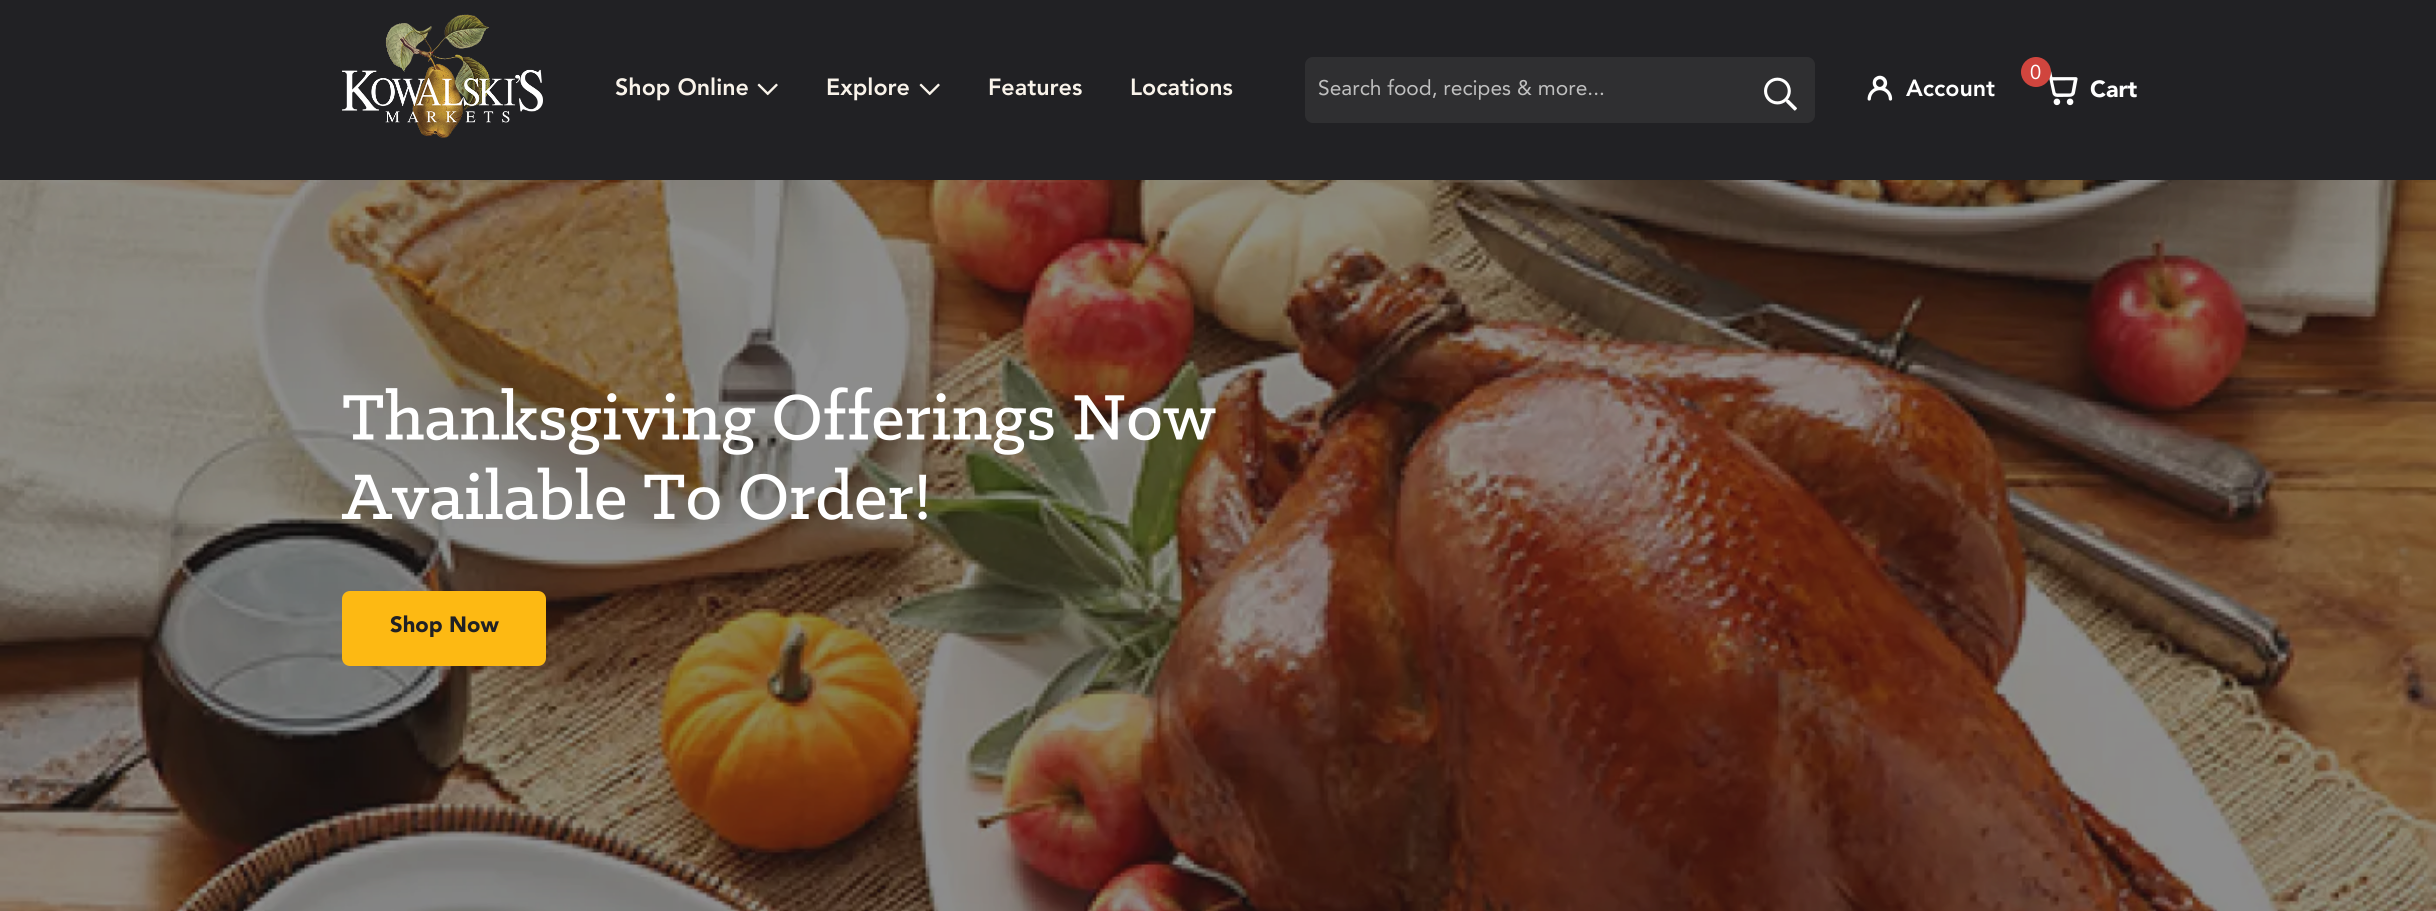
import math
import cairo



def rounded_rect(context, x, y, w, h, r):
    context.new_sub_path()
    for i, (u, v) in enumerate([(x + w - r, y + h - r), (x + r, y + h - r), (x + r, y + r), (x + w - r, y + r)]):
        context.arc(u, v, r, i * math.pi / 2, (i + 1) * math.pi / 2)
    context.close_path()


def draw_image(context, path, x, y, w, h):
    context.save()
    context.set_source_surface(cairo.ImageSurface.create_from_png(path), x, y)
    context.rectangle(x, y, w, h)
    context.fill()
    context.restore()


def draw(context):
    context.set_source_rgb(1, 1, 1)
    context.paint()
    context.set_source_rgb(33 / 255, 33 / 255, 36 / 255)
    context.rectangle(0, 0, 2436, 180)
    context.fill()
    draw_image(context, "images/1.png", 342, 14, 201, 124)
    draw_image(context, "images/2.png", 757, 83, 21, 13)
    draw_image(context, "images/2.png", 919, 83, 21, 13)
    context.set_source_rgb(47 / 255, 47 / 255, 49 / 255)
    rounded_rect(context, 1306, 58, 508, 64, 7)
    context.fill_preserve()
    context.stroke()
    draw_image(context, "images/3.png", 1764, 77, 33, 34)
    draw_image(context, "images/4.png", 1867, 75, 26, 26)
    draw_image(context, "images/5.png", 2049, 70, 29, 36)
    context.set_source_rgb(208 / 255, 69 / 255, 62 / 255)
    context.arc(2036, 72, 15, 0, 2 * math.pi)
    context.fill()
    draw_image(context, "images/6.png", 0, 180, 2436, 731)
    draw_image(context, "images/7.png", 343, 387, 873, 68)
    draw_image(context, "images/8.png", 341, 467, 586, 53)
    context.set_source_rgb(253 / 255, 185 / 255, 19 / 255)
    rounded_rect(context, 342, 591, 204, 75, 8)
    context.fill()
    context.select_font_face("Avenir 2 Black")
    context.set_font_size(23.25)
    context.set_source_rgb(249 / 255, 243 / 255, 234 / 255)
    context.move_to(615, 95)
    context.show_text("Shop Online")
    context.move_to(826, 95)
    context.show_text("Explore")
    context.move_to(988, 95)
    context.show_text("Features")
    context.move_to(1130, 95)
    context.show_text("Locations")
    context.select_font_face("Avenir")
    context.set_font_size(21)
    context.set_source_rgb(191 / 255, 191 / 255, 191 / 255)
    context.move_to(1318, 95)
    context.show_text("Search food, recipes & more...")
    context.select_font_face("Avenir 2 Black")
    context.set_font_size(23.25)
    context.set_source_rgb(1, 1, 1)
    context.move_to(1906, 96)
    context.show_text("Account")
    context.select_font_face("Avenir")
    context.set_font_size(20)
    context.move_to(2030, 79)
    context.show_text("0")
    context.select_font_face("Avenir Black")
    context.set_font_size(23.25)
    context.move_to(2090, 97)
    context.show_text("Cart")
    context.set_font_size(22)
    context.set_source_rgb(33 / 255, 33 / 255, 36 / 255)
    context.move_to(390, 632)
    context.show_text("Shop Now")


surface = cairo.ImageSurface(cairo.Format.RGB24, 2436, 911)
context = cairo.Context(surface)
options = cairo.FontOptions()
options.set_hint_metrics(cairo.HintMetrics.OFF)
options.set_hint_style(cairo.HintStyle.NONE)
context.set_font_options(options)
context.set_miter_limit(4)
draw(context)
surface.write_to_png("out.png")
